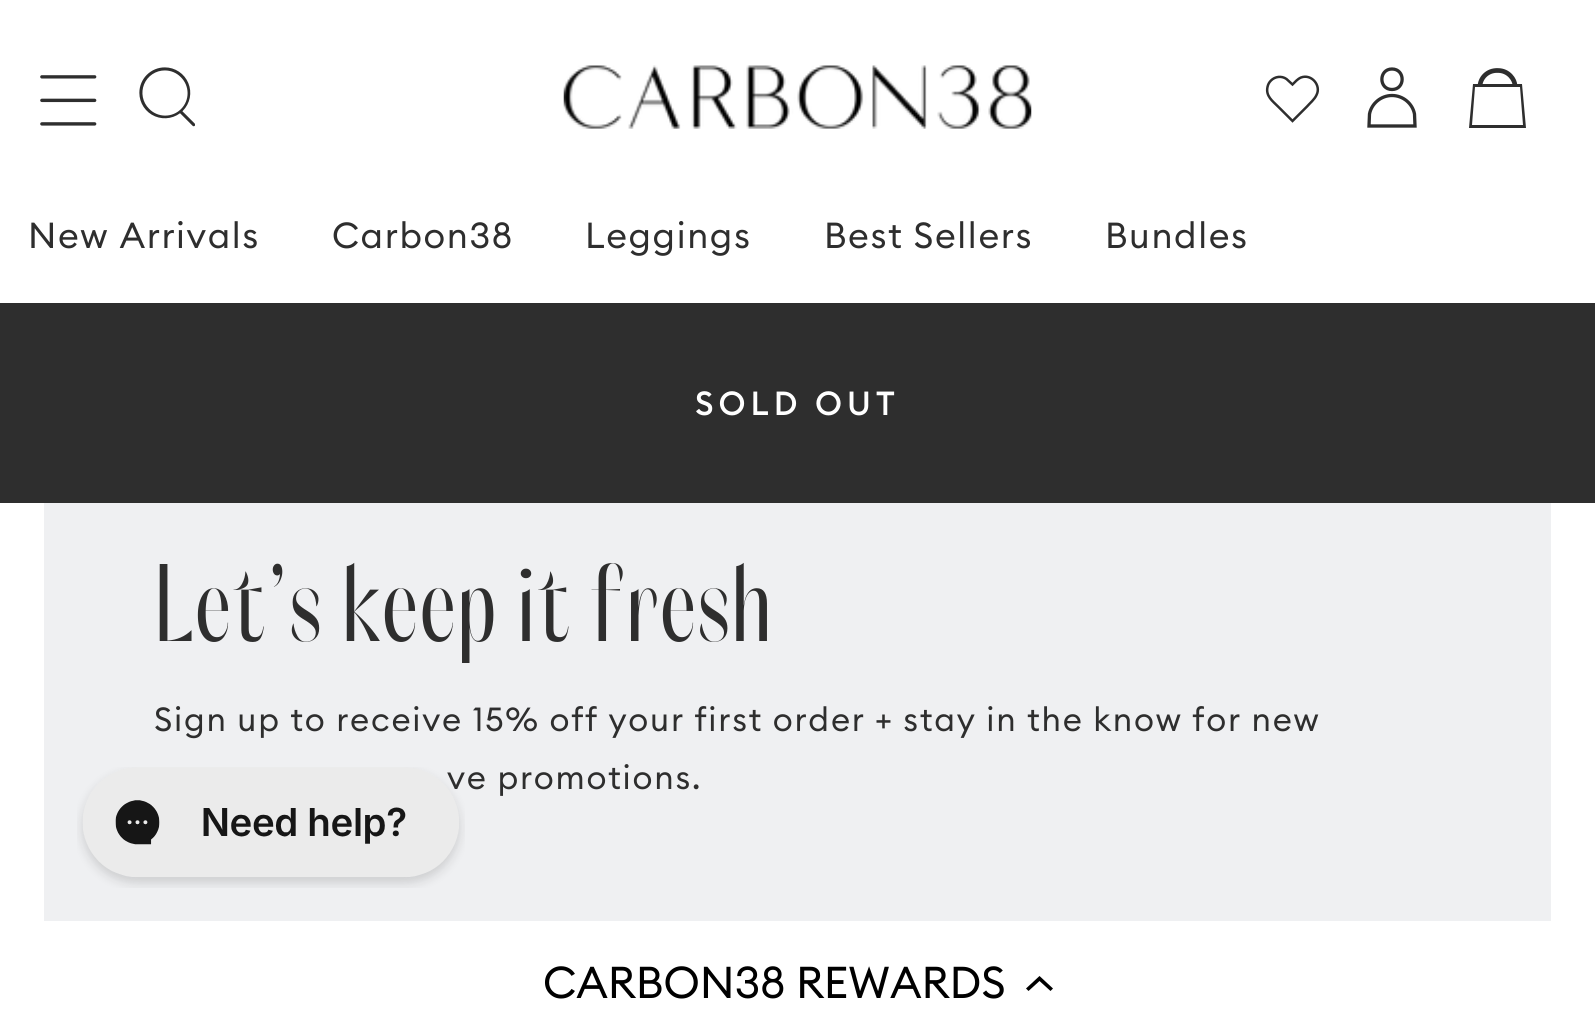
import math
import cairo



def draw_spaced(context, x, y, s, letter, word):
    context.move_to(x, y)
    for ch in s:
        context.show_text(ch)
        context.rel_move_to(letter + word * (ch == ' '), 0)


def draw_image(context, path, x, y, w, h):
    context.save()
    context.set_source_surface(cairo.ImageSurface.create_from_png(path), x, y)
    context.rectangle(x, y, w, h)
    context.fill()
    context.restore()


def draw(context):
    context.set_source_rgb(1, 1, 1)
    context.paint()
    draw_image(context, "images/1.png", 40, 75, 57, 51)
    draw_image(context, "images/2.png", 139, 67, 56, 60)
    draw_image(context, "images/3.png", 563, 65, 469, 64)
    context.new_path()
    context.move_to(1271, 80.5)
    context.curve_to(1269, 82.5, 1268, 84.5, 1267.5, 87)
    context.curve_to(1265.5, 96, 1272.5, 101, 1278, 106.5)
    context.line_to(1292.5, 121)
    context.line_to(1307, 106.5)
    context.curve_to(1310, 103, 1314.5, 99.5, 1316.5, 95)
    context.curve_to(1321.5, 85.5, 1311.5, 73.5, 1301, 77.5)
    context.curve_to(1297.5, 79, 1295, 82, 1292.5, 84.5)
    context.line_to(1286.5, 79)
    context.curve_to(1281.5, 75.5, 1275, 76.5, 1271, 80.5)
    context.close_path()
    context.set_source_rgb(46 / 255, 46 / 255, 46 / 255)
    context.set_line_width(2.5)
    context.stroke()
    context.new_path()
    context.move_to(1392, 95.5)
    context.curve_to(1403, 95.5, 1412.5, 103.5, 1414.5, 114)
    context.line_to(1415, 126)
    context.line_to(1369, 126)
    context.line_to(1369.5, 114)
    context.curve_to(1371.5, 103.5, 1381, 95.5, 1392, 95.5)
    context.close_path()
    context.move_to(1392, 89.5)
    context.curve_to(1405.5, 89.5, 1405.5, 69, 1392, 69)
    context.curve_to(1378.5, 69, 1378.5, 89.5, 1392, 89.5)
    context.close_path()
    context.set_line_width(3.3)
    context.stroke()
    context.new_path()
    context.move_to(1475, 87)
    context.line_to(1472, 125)
    context.line_to(1523, 125)
    context.line_to(1520, 87)
    context.close_path()
    context.move_to(1473, 84)
    context.line_to(1522, 84)
    context.line_to(1526, 128)
    context.line_to(1469, 128)
    context.close_path()
    context.fill()
    context.new_path()
    context.move_to(1515, 86)
    context.curve_to(1515, 79.5, 1508.5, 70.5, 1498, 70.5)
    context.curve_to(1487, 70, 1480, 78.5, 1480, 86.5)
    context.set_line_width(4.7)
    context.stroke()
    context.rectangle(0, 303, 1595, 200)
    context.fill()
    context.set_source_rgb(239 / 255, 240 / 255, 242 / 255)
    context.rectangle(44, 503, 1507, 418)
    context.fill()
    context.set_source_rgb(0, 0, 0)
    context.new_path()
    context.move_to(1039.5, 981)
    context.line_to(1028.5, 991)
    context.line_to(1026, 988.5)
    context.line_to(1039.5, 976)
    context.line_to(1053, 988.5)
    context.line_to(1050.5, 991)
    context.close_path()
    context.fill()
    context.select_font_face("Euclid")
    context.set_font_size(35.75)
    context.set_source_rgb(46 / 255, 46 / 255, 46 / 255)
    draw_spaced(context, 28, 248, "New Arrivals", 1.6, 0)
    draw_spaced(context, 332, 248, "Carbon38", 1.6, 0)
    draw_spaced(context, 585, 248, "Leggings", 1.6, 0)
    draw_spaced(context, 824, 248, "Best Sellers", 1.6, 0)
    draw_spaced(context, 1105, 248, "Bundles", 1.6, 0)
    context.select_font_face("Euclid Medium")
    context.set_font_size(33)
    context.set_source_rgb(1, 1, 1)
    draw_spaced(context, 695, 415, "SOLD OUT", 5, 0)
    context.select_font_face("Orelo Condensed")
    context.set_font_size(110)
    context.set_source_rgb(46 / 255, 46 / 255, 46 / 255)
    draw_spaced(context, 154, 641, "Let's keep it fresh", 1.6, 0)
    context.select_font_face("Euclid")
    context.set_font_size(33)
    draw_spaced(context, 154, 731, "Sign up to receive 15% off your first order + stay in the know for new", 1.75, 0)
    draw_spaced(context, 447, 789, "ve promotions.", 1.75, 0)
    draw_image(context, "images/4.png", 77, 767, 388, 121)
    context.select_font_face("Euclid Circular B")
    context.set_font_size(44)
    context.set_source_rgb(0, 0, 0)
    context.move_to(543, 998)
    context.show_text("CARBON38 REWARDS")


surface = cairo.ImageSurface(cairo.Format.RGB24, 1595, 1035)
context = cairo.Context(surface)
options = cairo.FontOptions()
options.set_hint_metrics(cairo.HintMetrics.OFF)
options.set_hint_style(cairo.HintStyle.NONE)
context.set_font_options(options)
context.set_miter_limit(4)
draw(context)
surface.write_to_png("out.png")
